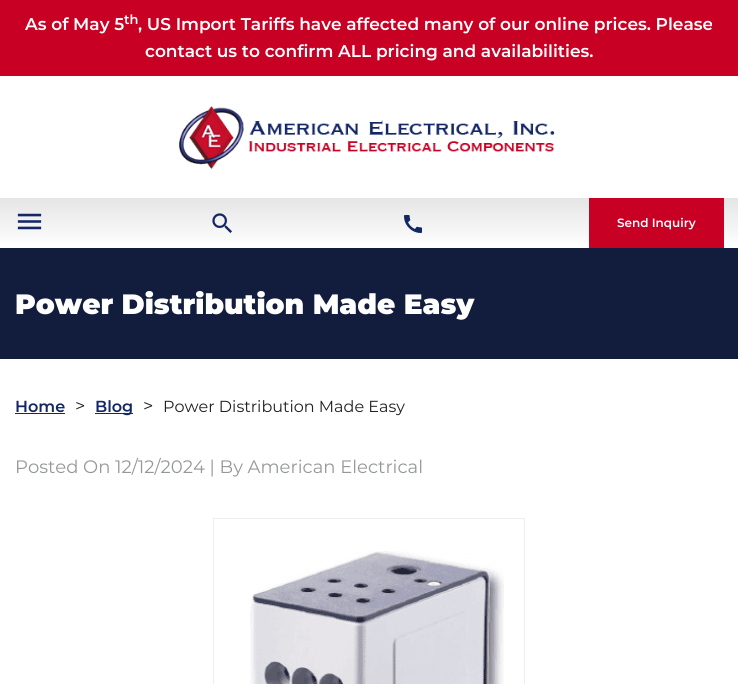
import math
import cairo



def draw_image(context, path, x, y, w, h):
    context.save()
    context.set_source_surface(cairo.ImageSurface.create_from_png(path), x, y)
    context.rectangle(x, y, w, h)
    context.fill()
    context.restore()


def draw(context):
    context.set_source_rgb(1, 1, 1)
    context.paint()
    context.set_source_rgb(200 / 255, 0, 35 / 255)
    context.rectangle(0, 0, 738, 76)
    context.fill()
    draw_image(context, "images/1.png", 179, 106, 376, 63)
    gradient = cairo.LinearGradient(369, 198, 369, 248)
    gradient.add_color_stop_rgba(0, 229 / 255, 229 / 255, 229 / 255, 1)
    gradient.add_color_stop_rgba(1, 1, 1, 1, 1)
    context.set_source(gradient)
    context.rectangle(0, 198, 738, 45)
    context.fill()
    draw_image(context, "images/2.png", 17, 213, 25, 17)
    draw_image(context, "images/3.png", 212, 213, 20, 20)
    draw_image(context, "images/4.png", 404, 215, 18, 18)
    context.set_source_rgb(200 / 255, 0, 35 / 255)
    context.rectangle(589, 198, 135, 50)
    context.fill()
    context.set_source_rgb(18 / 255, 28 / 255, 60 / 255)
    context.rectangle(0, 248, 738, 111)
    context.fill()
    context.set_source_rgb(19 / 255, 39 / 255, 102 / 255)
    context.rectangle(15, 413, 50, 1)
    context.fill()
    context.rectangle(95, 413, 38, 1)
    context.fill()
    context.rectangle(213.5, 518.5, 311, 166)
    context.set_source_rgb(238 / 255, 238 / 255, 238 / 255)
    context.set_line_width(1)
    context.stroke()
    draw_image(context, "images/5.png", 250, 551, 254, 133)
    context.select_font_face("Montserrat SemiBold")
    context.set_font_size(17)
    context.set_source_rgb(1, 1, 1)
    context.move_to(25, 30)
    context.show_text("As of May 5")
    context.set_font_size(13)
    context.move_to(124, 24)
    context.show_text("th")
    context.set_font_size(17)
    context.move_to(138, 30)
    context.show_text(", US Import Tariffs have affected many of our online prices. Please")
    context.move_to(145, 57)
    context.show_text("contact us to confirm ALL pricing and availabilities.")
    context.set_font_size(12)
    context.move_to(617, 227)
    context.show_text("Send Inquiry")
    context.select_font_face("Montserrat Black")
    context.set_font_size(28)
    context.move_to(15, 314)
    context.show_text("Power Distribution Made Easy")
    context.select_font_face("Montserrat SemiBold")
    context.set_font_size(16)
    context.set_source_rgb(19 / 255, 39 / 255, 102 / 255)
    context.move_to(15, 412)
    context.show_text("Home")
    context.select_font_face("Montserrat")
    context.set_font_size(18)
    context.set_source_rgb(33 / 255, 33 / 255, 33 / 255)
    context.move_to(75, 412)
    context.show_text(">")
    context.select_font_face("Montserrat SemiBold")
    context.set_font_size(16)
    context.set_source_rgb(19 / 255, 39 / 255, 102 / 255)
    context.move_to(95, 412)
    context.show_text("Blog")
    context.select_font_face("Montserrat")
    context.set_font_size(18)
    context.set_source_rgb(33 / 255, 33 / 255, 33 / 255)
    context.move_to(143, 412)
    context.show_text(">")
    context.set_font_size(16)
    context.move_to(163, 412)
    context.show_text("Power Distribution Made Easy")
    context.set_font_size(18)
    context.set_source_rgb(149 / 255, 152 / 255, 154 / 255)
    context.move_to(15, 473)
    context.show_text("Posted On 12/12/2024 | By American Electrical")


surface = cairo.ImageSurface(cairo.Format.RGB24, 738, 684)
context = cairo.Context(surface)
options = cairo.FontOptions()
options.set_hint_metrics(cairo.HintMetrics.OFF)
options.set_hint_style(cairo.HintStyle.NONE)
context.set_font_options(options)
context.set_miter_limit(4)
draw(context)
surface.write_to_png("out.png")
